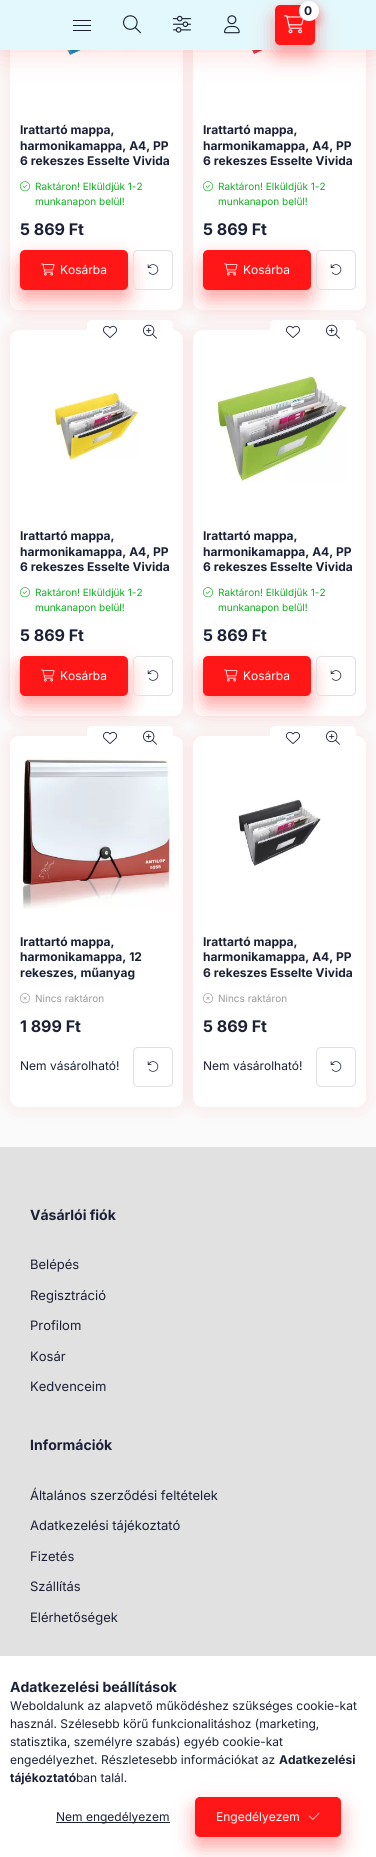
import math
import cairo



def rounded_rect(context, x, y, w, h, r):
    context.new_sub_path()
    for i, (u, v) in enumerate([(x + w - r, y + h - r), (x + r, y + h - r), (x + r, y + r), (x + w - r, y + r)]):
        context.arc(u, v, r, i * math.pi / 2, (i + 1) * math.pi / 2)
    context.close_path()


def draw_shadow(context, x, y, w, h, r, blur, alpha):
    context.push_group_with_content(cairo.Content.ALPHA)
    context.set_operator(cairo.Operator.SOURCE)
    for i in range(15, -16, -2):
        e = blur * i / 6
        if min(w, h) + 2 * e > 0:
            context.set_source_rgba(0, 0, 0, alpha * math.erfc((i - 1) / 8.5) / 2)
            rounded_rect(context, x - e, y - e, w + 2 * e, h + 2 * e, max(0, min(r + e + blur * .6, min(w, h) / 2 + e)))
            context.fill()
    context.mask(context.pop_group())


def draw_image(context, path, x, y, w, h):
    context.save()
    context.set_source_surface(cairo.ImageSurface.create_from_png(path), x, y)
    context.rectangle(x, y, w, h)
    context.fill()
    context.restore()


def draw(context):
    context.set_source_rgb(250 / 255, 250 / 255, 250 / 255)
    context.paint()
    context.set_source_rgb(1, 22 / 255, 22 / 255)
    draw_shadow(context, 10, -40, 173, 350, 10, 10, 0.05)
    context.set_source_rgb(1, 1, 1)
    context.new_path()
    context.move_to(173, -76)
    context.line_to(20, -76)
    context.curve_to(14, -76, 10, -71, 10, -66)
    context.line_to(10, 300)
    context.curve_to(10, 306, 14, 310, 20, 310)
    context.line_to(173, 310)
    context.curve_to(179, 310, 183, 306, 183, 300)
    context.line_to(183, -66)
    context.curve_to(183, -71, 179, -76, 173, -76)
    context.close_path()
    context.fill()
    context.set_source_rgb(1, 22 / 255, 22 / 255)
    draw_shadow(context, 10, -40, 173, 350, 10, 10, 0.05)
    context.set_source_rgb(1, 1, 1)
    rounded_rect(context, 10, -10, 173, 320, 10)
    context.fill()
    draw_image(context, "images/5.png", 51, 50, 91, 8)
    context.set_source_rgb(1, 22 / 255, 22 / 255)
    draw_shadow(context, 20, 260, 108, 40, 5, 10, 0.4)
    rounded_rect(context, 133.5, 250.5, 39, 39, 4.5)
    context.set_source_rgb(225 / 255, 225 / 255, 225 / 255)
    context.set_line_width(1)
    context.stroke()
    context.set_source_rgb(1, 22 / 255, 22 / 255)
    draw_shadow(context, 193, -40, 173, 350, 10, 10, 0.05)
    context.set_source_rgb(1, 1, 1)
    context.new_path()
    context.move_to(356, -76)
    context.line_to(203, -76)
    context.curve_to(197, -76, 193, -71, 193, -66)
    context.line_to(193, 300)
    context.curve_to(193, 306, 197, 310, 203, 310)
    context.line_to(356, 310)
    context.curve_to(362, 310, 366, 306, 366, 300)
    context.line_to(366, -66)
    context.curve_to(366, -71, 362, -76, 356, -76)
    context.close_path()
    context.fill()
    context.set_source_rgb(1, 22 / 255, 22 / 255)
    draw_shadow(context, 193, -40, 173, 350, 10, 10, 0.05)
    context.set_source_rgb(1, 1, 1)
    rounded_rect(context, 193, -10, 173, 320, 10)
    context.fill()
    draw_image(context, "images/9.png", 237, 50, 84, 5)
    context.set_source_rgb(1, 22 / 255, 22 / 255)
    draw_shadow(context, 0, 0, 376, 50, 0, 15, 0.2)
    context.set_source_rgb(227 / 255, 248 / 255, 252 / 255)
    context.rectangle(0, 0, 376, 50)
    context.fill()
    context.set_source_rgb(1, 22 / 255, 22 / 255)
    draw_shadow(context, 275, 15, 40, 40, 5, 10, 0.4)
    context.set_source_rgb(1, 22 / 255, 22 / 255)
    rounded_rect(context, 275, 5, 40, 40, 5)
    context.fill()
    draw_image(context, "images/1.png", 284, 15, 20, 19)
    context.set_source_rgb(1, 22 / 255, 22 / 255)
    draw_shadow(context, 299, 6, 20, 20, 10, 5, 0.4)
    context.set_source_rgb(1, 1, 1)
    context.arc(309, 11, 10, 0, 2 * math.pi)
    context.fill()
    context.set_source_rgb(27 / 255, 32 / 255, 54 / 255)
    context.rectangle(73, 20, 18, 1)
    context.fill()
    context.rectangle(73, 25, 18, 1)
    context.fill()
    context.rectangle(73, 30, 18, 1)
    context.fill()
    draw_image(context, "images/2.png", 123, 15, 18, 19)
    draw_image(context, "images/3.png", 173, 15, 18, 18)
    draw_image(context, "images/4.png", 224, 15, 16, 19)
    draw_image(context, "images/6.png", 20, 181, 10, 11)
    context.set_source_rgb(1, 22 / 255, 22 / 255)
    rounded_rect(context, 20, 250, 108, 40, 5)
    context.fill()
    draw_image(context, "images/7.png", 41, 263, 14, 13)
    draw_image(context, "images/8.png", 147, 264, 12, 11)
    draw_image(context, "images/6.png", 203, 181, 10, 11)
    context.set_source_rgb(1, 22 / 255, 22 / 255)
    draw_shadow(context, 203, 260, 108, 40, 5, 10, 0.4)
    context.set_source_rgb(1, 22 / 255, 22 / 255)
    rounded_rect(context, 203, 250, 108, 40, 5)
    context.fill()
    draw_image(context, "images/7.png", 224, 263, 14, 13)
    rounded_rect(context, 316.5, 250.5, 39, 39, 4.5)
    context.set_source_rgb(225 / 255, 225 / 255, 225 / 255)
    context.stroke()
    draw_image(context, "images/8.png", 330, 264, 12, 11)
    context.set_source_rgb(1, 22 / 255, 22 / 255)
    draw_shadow(context, 10, 330, 173, 386, 10, 10, 0.05)
    draw_shadow(context, 10, 330, 173, 386, 10, 10, 0.05)
    context.set_source_rgb(1, 1, 1)
    rounded_rect(context, 10, 330, 173, 386, 10)
    context.fill()
    rounded_rect(context, 87, 320, 86, 24, 5)
    context.fill()
    draw_image(context, "images/10.png", 103, 325, 14, 13)
    draw_image(context, "images/11.png", 143, 324, 14, 15)
    draw_image(context, "images/12.png", 54, 389, 85, 71)
    draw_image(context, "images/6.png", 20, 587, 10, 11)
    context.set_source_rgb(1, 22 / 255, 22 / 255)
    draw_shadow(context, 20, 666, 108, 40, 5, 10, 0.4)
    context.set_source_rgb(1, 22 / 255, 22 / 255)
    rounded_rect(context, 20, 656, 108, 40, 5)
    context.fill()
    draw_image(context, "images/7.png", 41, 669, 14, 13)
    rounded_rect(context, 133.5, 656.5, 39, 39, 4.5)
    context.set_source_rgb(225 / 255, 225 / 255, 225 / 255)
    context.stroke()
    draw_image(context, "images/8.png", 147, 670, 12, 11)
    context.set_source_rgb(1, 22 / 255, 22 / 255)
    draw_shadow(context, 193, 330, 173, 386, 10, 10, 0.05)
    draw_shadow(context, 193, 330, 173, 386, 10, 10, 0.05)
    context.set_source_rgb(1, 1, 1)
    rounded_rect(context, 193, 330, 173, 386, 10)
    context.fill()
    rounded_rect(context, 270, 320, 86, 24, 5)
    context.fill()
    draw_image(context, "images/10.png", 286, 325, 14, 13)
    draw_image(context, "images/11.png", 326, 324, 14, 15)
    draw_image(context, "images/13.png", 216, 376, 132, 106)
    draw_image(context, "images/6.png", 203, 587, 10, 11)
    context.set_source_rgb(1, 22 / 255, 22 / 255)
    draw_shadow(context, 203, 666, 108, 40, 5, 10, 0.4)
    context.set_source_rgb(1, 22 / 255, 22 / 255)
    rounded_rect(context, 203, 656, 108, 40, 5)
    context.fill()
    draw_image(context, "images/7.png", 224, 669, 14, 13)
    rounded_rect(context, 316.5, 656.5, 39, 39, 4.5)
    context.set_source_rgb(225 / 255, 225 / 255, 225 / 255)
    context.stroke()
    draw_image(context, "images/8.png", 330, 670, 12, 11)
    context.set_source_rgb(1, 22 / 255, 22 / 255)
    draw_shadow(context, 10, 736, 173, 371, 10, 10, 0.05)
    context.set_source_rgb(1, 1, 1)
    context.new_path()
    context.move_to(173, 736)
    context.line_to(20, 736)
    context.curve_to(14, 736, 10, 740, 10, 746)
    context.line_to(10, 1097)
    context.curve_to(10, 1102, 14, 1107, 20, 1107)
    context.line_to(173, 1107)
    context.curve_to(179, 1107, 183, 1102, 183, 1097)
    context.line_to(183, 746)
    context.curve_to(183, 740, 179, 736, 173, 736)
    context.close_path()
    context.fill()
    context.set_source_rgb(1, 22 / 255, 22 / 255)
    draw_shadow(context, 10, 736, 173, 371, 10, 10, 0.05)
    context.set_source_rgb(1, 1, 1)
    rounded_rect(context, 10, 736, 173, 371, 10)
    context.fill()
    rounded_rect(context, 87, 726, 86, 24, 5)
    context.fill()
    draw_image(context, "images/10.png", 103, 731, 14, 13)
    draw_image(context, "images/11.png", 143, 730, 14, 15)
    draw_image(context, "images/14.png", 21, 758, 152, 151)
    draw_image(context, "images/15.png", 20, 993, 10, 11)
    rounded_rect(context, 133.5, 1047.5, 39, 39, 4.5)
    context.set_source_rgb(225 / 255, 225 / 255, 225 / 255)
    context.stroke()
    draw_image(context, "images/16.png", 147, 1061, 12, 11)
    context.set_source_rgb(1, 22 / 255, 22 / 255)
    draw_shadow(context, 193, 736, 173, 371, 10, 10, 0.05)
    context.set_source_rgb(1, 1, 1)
    context.new_path()
    context.move_to(356, 736)
    context.line_to(203, 736)
    context.curve_to(197, 736, 193, 740, 193, 746)
    context.line_to(193, 1097)
    context.curve_to(193, 1102, 197, 1107, 203, 1107)
    context.line_to(356, 1107)
    context.curve_to(362, 1107, 366, 1102, 366, 1097)
    context.line_to(366, 746)
    context.curve_to(366, 740, 362, 736, 356, 736)
    context.close_path()
    context.fill()
    context.set_source_rgb(1, 22 / 255, 22 / 255)
    draw_shadow(context, 193, 736, 173, 371, 10, 10, 0.05)
    context.set_source_rgb(1, 1, 1)
    rounded_rect(context, 193, 736, 173, 371, 10)
    context.fill()
    rounded_rect(context, 270, 726, 86, 24, 5)
    context.fill()
    draw_image(context, "images/10.png", 286, 731, 14, 13)
    draw_image(context, "images/11.png", 326, 730, 14, 15)
    draw_image(context, "images/17.png", 238, 799, 83, 67)
    draw_image(context, "images/15.png", 203, 993, 10, 11)
    rounded_rect(context, 316.5, 1047.5, 39, 39, 4.5)
    context.set_source_rgb(225 / 255, 225 / 255, 225 / 255)
    context.stroke()
    draw_image(context, "images/16.png", 330, 1061, 12, 11)
    context.rectangle(0, 1147, 376, 509)
    context.fill()
    context.set_source_rgb(1, 1, 1)
    context.rectangle(0, 1656, 376, 201)
    context.fill()
    context.set_source_rgb(27 / 255, 32 / 255, 54 / 255)
    context.rectangle(56, 1822, 114, 1)
    context.fill()
    context.set_source_rgb(1, 22 / 255, 22 / 255)
    draw_shadow(context, 195, 1807, 146, 40, 5, 10, 0.4)
    context.set_source_rgb(1, 22 / 255, 22 / 255)
    rounded_rect(context, 195.5, 1797.5, 145, 39, 4.5)
    context.fill_preserve()
    context.stroke()
    draw_image(context, "images/18.png", 309, 1812, 11, 8)
    context.select_font_face("Inter", cairo.FontSlant.NORMAL, cairo.FontWeight.BOLD)
    context.set_font_size(12)
    context.set_source_rgb(27 / 255, 32 / 255, 54 / 255)
    context.move_to(304, 15)
    context.show_text("0")
    context.move_to(20, 134)
    context.show_text("Irattartó mappa,")
    context.move_to(20, 150)
    context.show_text("harmonikamappa, A4, PP")
    context.move_to(20, 165)
    context.show_text("6 rekeszes Esselte Vivida")
    context.select_font_face("Inter")
    context.set_font_size(10)
    context.set_source_rgb(16 / 255, 174 / 255, 32 / 255)
    context.move_to(35, 190)
    context.show_text("Raktáron! Elküldjük 1-2")
    context.move_to(35, 205)
    context.show_text("munkanapon belül!")
    context.select_font_face("Inter", cairo.FontSlant.NORMAL, cairo.FontWeight.BOLD)
    context.set_font_size(16)
    context.set_source_rgb(27 / 255, 32 / 255, 54 / 255)
    context.move_to(20, 235)
    context.show_text("5 869 Ft")
    context.select_font_face("Inter")
    context.set_font_size(12)
    context.set_source_rgb(1, 1, 1)
    context.move_to(60, 274)
    context.show_text("Kosárba")
    context.select_font_face("Inter", cairo.FontSlant.NORMAL, cairo.FontWeight.BOLD)
    context.set_source_rgb(27 / 255, 32 / 255, 54 / 255)
    context.move_to(203, 134)
    context.show_text("Irattartó mappa,")
    context.move_to(203, 150)
    context.show_text("harmonikamappa, A4, PP")
    context.move_to(203, 165)
    context.show_text("6 rekeszes Esselte Vivida")
    context.select_font_face("Inter")
    context.set_font_size(10)
    context.set_source_rgb(16 / 255, 174 / 255, 32 / 255)
    context.move_to(218, 190)
    context.show_text("Raktáron! Elküldjük 1-2")
    context.move_to(218, 205)
    context.show_text("munkanapon belül!")
    context.select_font_face("Inter", cairo.FontSlant.NORMAL, cairo.FontWeight.BOLD)
    context.set_font_size(16)
    context.set_source_rgb(27 / 255, 32 / 255, 54 / 255)
    context.move_to(203, 235)
    context.show_text("5 869 Ft")
    context.select_font_face("Inter")
    context.set_font_size(12)
    context.set_source_rgb(1, 1, 1)
    context.move_to(243, 274)
    context.show_text("Kosárba")
    context.select_font_face("Inter", cairo.FontSlant.NORMAL, cairo.FontWeight.BOLD)
    context.set_source_rgb(27 / 255, 32 / 255, 54 / 255)
    context.move_to(20, 540)
    context.show_text("Irattartó mappa,")
    context.move_to(20, 556)
    context.show_text("harmonikamappa, A4, PP")
    context.move_to(20, 571)
    context.show_text("6 rekeszes Esselte Vivida")
    context.select_font_face("Inter")
    context.set_font_size(10)
    context.set_source_rgb(16 / 255, 174 / 255, 32 / 255)
    context.move_to(35, 596)
    context.show_text("Raktáron! Elküldjük 1-2")
    context.move_to(35, 611)
    context.show_text("munkanapon belül!")
    context.select_font_face("Inter", cairo.FontSlant.NORMAL, cairo.FontWeight.BOLD)
    context.set_font_size(16)
    context.set_source_rgb(27 / 255, 32 / 255, 54 / 255)
    context.move_to(20, 641)
    context.show_text("5 869 Ft")
    context.select_font_face("Inter")
    context.set_font_size(12)
    context.set_source_rgb(1, 1, 1)
    context.move_to(60, 680)
    context.show_text("Kosárba")
    context.select_font_face("Inter", cairo.FontSlant.NORMAL, cairo.FontWeight.BOLD)
    context.set_source_rgb(27 / 255, 32 / 255, 54 / 255)
    context.move_to(203, 540)
    context.show_text("Irattartó mappa,")
    context.move_to(203, 556)
    context.show_text("harmonikamappa, A4, PP")
    context.move_to(203, 571)
    context.show_text("6 rekeszes Esselte Vivida")
    context.select_font_face("Inter")
    context.set_font_size(10)
    context.set_source_rgb(16 / 255, 174 / 255, 32 / 255)
    context.move_to(218, 596)
    context.show_text("Raktáron! Elküldjük 1-2")
    context.move_to(218, 611)
    context.show_text("munkanapon belül!")
    context.select_font_face("Inter", cairo.FontSlant.NORMAL, cairo.FontWeight.BOLD)
    context.set_font_size(16)
    context.set_source_rgb(27 / 255, 32 / 255, 54 / 255)
    context.move_to(203, 641)
    context.show_text("5 869 Ft")
    context.select_font_face("Inter")
    context.set_font_size(12)
    context.set_source_rgb(1, 1, 1)
    context.move_to(243, 680)
    context.show_text("Kosárba")
    context.select_font_face("Inter", cairo.FontSlant.NORMAL, cairo.FontWeight.BOLD)
    context.set_source_rgb(27 / 255, 32 / 255, 54 / 255)
    context.move_to(20, 946)
    context.show_text("Irattartó mappa,")
    context.move_to(20, 961)
    context.show_text("harmonikamappa, 12")
    context.move_to(20, 977)
    context.show_text("rekeszes, műanyag")
    context.select_font_face("Inter")
    context.set_font_size(10)
    context.set_source_rgb(153 / 255, 153 / 255, 153 / 255)
    context.move_to(35, 1002)
    context.show_text("Nincs raktáron")
    context.select_font_face("Inter", cairo.FontSlant.NORMAL, cairo.FontWeight.BOLD)
    context.set_font_size(16)
    context.set_source_rgb(27 / 255, 32 / 255, 54 / 255)
    context.move_to(20, 1032)
    context.show_text("1 899 Ft")
    context.select_font_face("Inter")
    context.set_font_size(12)
    context.move_to(20, 1070)
    context.show_text("Nem vásárolható!")
    context.select_font_face("Inter", cairo.FontSlant.NORMAL, cairo.FontWeight.BOLD)
    context.move_to(203, 946)
    context.show_text("Irattartó mappa,")
    context.move_to(203, 961)
    context.show_text("harmonikamappa, A4, PP")
    context.move_to(203, 977)
    context.show_text("6 rekeszes Esselte Vivida")
    context.select_font_face("Inter")
    context.set_font_size(10)
    context.set_source_rgb(153 / 255, 153 / 255, 153 / 255)
    context.move_to(218, 1002)
    context.show_text("Nincs raktáron")
    context.select_font_face("Inter", cairo.FontSlant.NORMAL, cairo.FontWeight.BOLD)
    context.set_font_size(16)
    context.set_source_rgb(27 / 255, 32 / 255, 54 / 255)
    context.move_to(203, 1032)
    context.show_text("5 869 Ft")
    context.select_font_face("Inter")
    context.set_font_size(12)
    context.move_to(203, 1070)
    context.show_text("Nem vásárolható!")
    context.select_font_face("Inter", cairo.FontSlant.NORMAL, cairo.FontWeight.BOLD)
    context.set_font_size(14)
    context.move_to(30, 1220)
    context.show_text("Vásárlói fiók")
    context.select_font_face("Inter")
    context.set_font_size(13)
    context.move_to(30, 1269)
    context.show_text("Belépés")
    context.move_to(30, 1300)
    context.show_text("Regisztráció")
    context.move_to(30, 1330)
    context.show_text("Profilom")
    context.move_to(30, 1361)
    context.show_text("Kosár")
    context.move_to(30, 1391)
    context.show_text("Kedvenceim")
    context.select_font_face("Inter", cairo.FontSlant.NORMAL, cairo.FontWeight.BOLD)
    context.set_font_size(14)
    context.move_to(30, 1450)
    context.show_text("Információk")
    context.select_font_face("Inter")
    context.set_font_size(13)
    context.move_to(30, 1500)
    context.show_text("Általános szerződési feltételek")
    context.move_to(30, 1530)
    context.show_text("Adatkezelési tájékoztató")
    context.move_to(30, 1561)
    context.show_text("Fizetés")
    context.move_to(30, 1591)
    context.show_text("Szállítás")
    context.move_to(30, 1622)
    context.show_text("Elérhetőségek")
    context.select_font_face("Inter", cairo.FontSlant.NORMAL, cairo.FontWeight.BOLD)
    context.set_font_size(14)
    context.move_to(10, 1692)
    context.show_text("Adatkezelési beállítások")
    context.select_font_face("Inter")
    context.set_font_size(12)
    context.move_to(10, 1710)
    context.show_text("Weboldalunk az alapvető működéshez szükséges cookie-kat")
    context.move_to(10, 1728)
    context.show_text("használ. Szélesebb körű funkcionalitáshoz (marketing,")
    context.move_to(10, 1746)
    context.show_text("statisztika, személyre szabás) egyéb cookie-kat")
    context.move_to(10, 1764)
    context.show_text("engedélyezhet. Részletesebb információkat az")
    context.select_font_face("Inter", cairo.FontSlant.NORMAL, cairo.FontWeight.BOLD)
    context.move_to(279, 1764)
    context.show_text("Adatkezelési")
    context.move_to(10, 1782)
    context.show_text("tájékoztató")
    context.select_font_face("Inter")
    context.move_to(76, 1782)
    context.show_text("ban talál.")
    context.move_to(56, 1821)
    context.show_text("Nem engedélyezem")
    context.set_source_rgb(1, 1, 1)
    context.move_to(216, 1821)
    context.show_text("Engedélyezem")


surface = cairo.ImageSurface(cairo.Format.RGB24, 376, 1857)
context = cairo.Context(surface)
options = cairo.FontOptions()
options.set_hint_metrics(cairo.HintMetrics.OFF)
options.set_hint_style(cairo.HintStyle.NONE)
context.set_font_options(options)
context.set_miter_limit(4)
draw(context)
surface.write_to_png("out.png")
